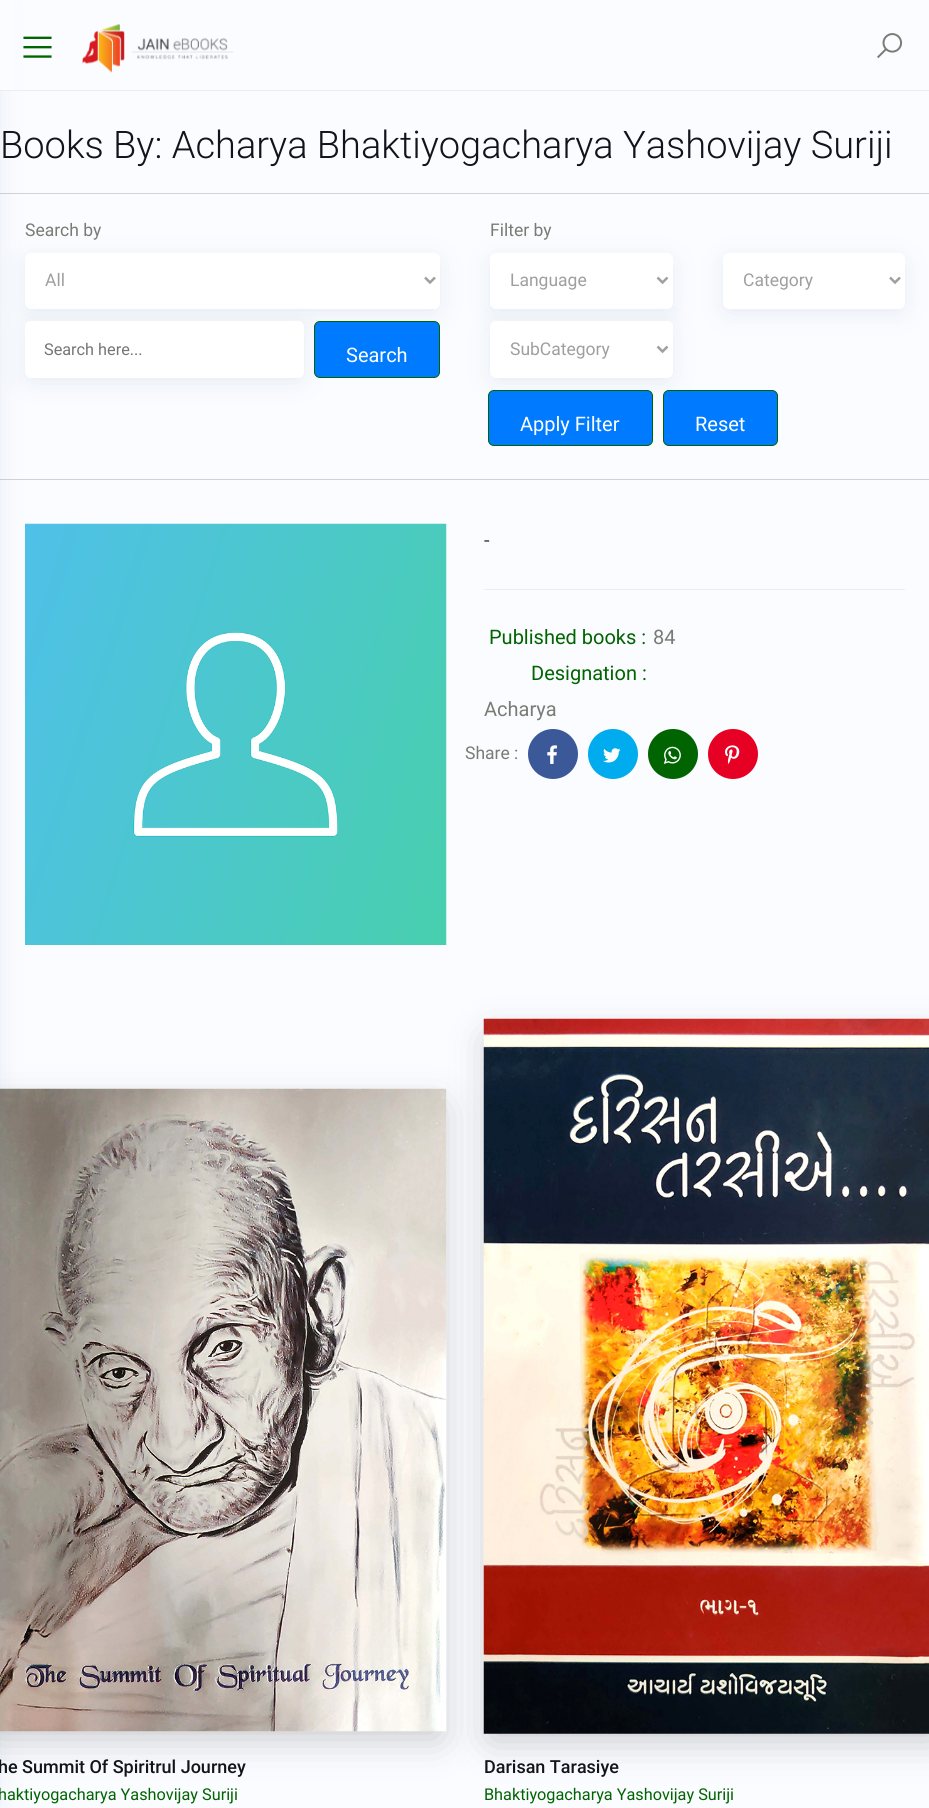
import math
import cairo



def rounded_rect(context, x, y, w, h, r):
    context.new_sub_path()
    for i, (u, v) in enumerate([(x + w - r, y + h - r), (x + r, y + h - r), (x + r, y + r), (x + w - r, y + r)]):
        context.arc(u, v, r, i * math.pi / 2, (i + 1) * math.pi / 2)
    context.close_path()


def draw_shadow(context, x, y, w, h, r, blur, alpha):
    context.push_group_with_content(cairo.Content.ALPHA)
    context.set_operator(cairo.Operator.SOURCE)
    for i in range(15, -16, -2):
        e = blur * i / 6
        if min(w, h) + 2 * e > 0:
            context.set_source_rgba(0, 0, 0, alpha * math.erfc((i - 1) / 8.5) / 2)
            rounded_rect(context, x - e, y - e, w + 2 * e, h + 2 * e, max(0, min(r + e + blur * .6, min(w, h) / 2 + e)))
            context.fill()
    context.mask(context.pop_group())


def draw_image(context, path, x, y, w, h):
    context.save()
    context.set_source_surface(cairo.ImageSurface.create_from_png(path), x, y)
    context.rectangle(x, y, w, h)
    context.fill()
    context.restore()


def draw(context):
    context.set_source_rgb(251 / 255, 252 / 255, 1)
    context.paint()
    context.set_source_rgb(210 / 255, 210 / 255, 210 / 255)
    context.rectangle(0, 193, 929, 1)
    context.fill()
    context.rectangle(0, 479, 929, 1)
    context.fill()
    context.set_source_rgb(44 / 255, 101 / 255, 144 / 255)
    draw_shadow(context, 25, 258, 415, 56, 6, 12.5, 0.1)
    context.set_source_rgb(1, 1, 1)
    rounded_rect(context, 25, 253, 415, 56, 6)
    context.fill()
    context.set_source_rgb(44 / 255, 101 / 255, 144 / 255)
    draw_shadow(context, 25, 326, 279, 57, 6, 12.5, 0.1)
    context.set_source_rgb(1, 1, 1)
    rounded_rect(context, 25, 321, 279, 57, 6)
    context.fill()
    draw_image(context, "images/4.png", 25, 523, 422, 422)
    context.set_source_rgb(0, 0, 0)
    draw_shadow(context, -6, 1108, 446, 630, 0, 20, 0.21)
    draw_image(context, "images/9.png", 0, 1088, 447, 644)
    context.set_source_rgb(44 / 255, 101 / 255, 144 / 255)
    draw_shadow(context, -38, 0, 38, 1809, 0, 12.5, 0.1)
    context.set_source_rgb(251 / 255, 252 / 255, 1)
    context.rectangle(0, 0, 14, 90)
    context.fill()
    context.set_source_rgb(237 / 255, 237 / 255, 240 / 255)
    context.rectangle(0, 90, 929, 1)
    context.fill()
    draw_image(context, "images/1.png", 23, 36, 29, 22)
    draw_image(context, "images/2.png", 82, 24, 152, 49)
    draw_image(context, "images/3.png", 877, 33, 26, 26)
    context.new_path()
    context.move_to(425, 277.5)
    context.line_to(430, 282.5)
    context.line_to(435, 277.5)
    context.set_source_rgb(160 / 255, 158 / 255, 158 / 255)
    context.set_line_width(2.5)
    context.stroke()
    context.set_source_rgb(0, 123 / 255, 1)
    rounded_rect(context, 314.5, 321.5, 125, 56, 5.5)
    context.fill_preserve()
    context.set_source_rgb(0, 100 / 255, 0)
    context.set_line_width(1)
    context.stroke()
    context.set_source_rgb(44 / 255, 101 / 255, 144 / 255)
    draw_shadow(context, 490, 258, 183, 56, 6, 12.5, 0.1)
    context.set_source_rgb(1, 1, 1)
    rounded_rect(context, 490, 253, 183, 56, 6)
    context.fill()
    context.new_path()
    context.move_to(657.5, 277.5)
    context.line_to(662.5, 282.5)
    context.line_to(667.5, 277.5)
    context.set_source_rgb(160 / 255, 158 / 255, 158 / 255)
    context.set_line_width(2.5)
    context.stroke()
    context.set_source_rgb(44 / 255, 101 / 255, 144 / 255)
    draw_shadow(context, 723, 258, 182, 56, 6, 12.5, 0.1)
    context.set_source_rgb(1, 1, 1)
    rounded_rect(context, 723, 253, 182, 56, 6)
    context.fill()
    context.new_path()
    context.move_to(890, 277.5)
    context.line_to(895, 282.5)
    context.line_to(900, 277.5)
    context.set_source_rgb(160 / 255, 158 / 255, 158 / 255)
    context.stroke()
    context.set_source_rgb(0, 123 / 255, 1)
    rounded_rect(context, 488.5, 390.5, 164, 55, 5.5)
    context.fill_preserve()
    context.set_source_rgb(0, 100 / 255, 0)
    context.set_line_width(1)
    context.stroke()
    context.set_source_rgb(0, 123 / 255, 1)
    rounded_rect(context, 663.5, 390.5, 114, 55, 5.5)
    context.fill_preserve()
    context.set_source_rgb(0, 100 / 255, 0)
    context.stroke()
    context.set_source_rgb(44 / 255, 101 / 255, 144 / 255)
    draw_shadow(context, 490, 326, 183, 57, 6, 12.5, 0.1)
    context.set_source_rgb(1, 1, 1)
    rounded_rect(context, 490, 321, 183, 57, 6)
    context.fill()
    context.new_path()
    context.move_to(657.5, 346.5)
    context.line_to(662.5, 351.5)
    context.line_to(667.5, 346.5)
    context.set_source_rgb(160 / 255, 158 / 255, 158 / 255)
    context.set_line_width(2.5)
    context.stroke()
    context.set_source_rgb(237 / 255, 237 / 255, 240 / 255)
    context.rectangle(484, 589, 421, 1)
    context.fill()
    context.set_source_rgb(59 / 255, 89 / 255, 152 / 255)
    context.arc(553, 754, 25, 0, 2 * math.pi)
    context.fill()
    draw_image(context, "images/5.png", 547, 745, 10, 19)
    context.set_source_rgb(0, 172 / 255, 238 / 255)
    context.arc(613, 754, 25, 0, 2 * math.pi)
    context.fill()
    draw_image(context, "images/6.png", 603, 748, 18, 15)
    context.set_source_rgb(0, 100 / 255, 0)
    context.arc(673, 754, 25, 0, 2 * math.pi)
    context.fill()
    draw_image(context, "images/7.png", 663, 746, 18, 18)
    context.set_source_rgb(230 / 255, 0, 35 / 255)
    context.arc(733, 754, 25, 0, 2 * math.pi)
    context.fill()
    draw_image(context, "images/8.png", 725, 745, 15, 19)
    context.set_source_rgb(0, 0, 0)
    draw_shadow(context, 490, 1038, 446, 702, 0, 20, 0.21)
    draw_image(context, "images/10.png", 483, 1018, 446, 716)
    context.select_font_face("Roboto Light")
    context.set_font_size(38)
    context.set_source_rgb(17 / 255, 20 / 255, 27 / 255)
    context.move_to(0, 158)
    context.show_text("Books By: Acharya Bhaktiyogacharya Yashovijay Suriji")
    context.select_font_face("Roboto")
    context.set_font_size(17.5)
    context.set_source_rgb(119 / 255, 125 / 255, 116 / 255)
    context.move_to(25, 236)
    context.show_text("Search by")
    context.set_source_rgb(160 / 255, 158 / 255, 158 / 255)
    context.move_to(45, 286)
    context.show_text("All")
    context.set_font_size(16.25)
    context.set_source_rgb(117 / 255, 117 / 255, 117 / 255)
    context.move_to(44, 355)
    context.show_text("Search here...")
    context.set_font_size(20)
    context.set_source_rgb(1, 1, 1)
    context.move_to(346, 362)
    context.show_text("Search")
    context.set_font_size(17.5)
    context.set_source_rgb(119 / 255, 125 / 255, 116 / 255)
    context.move_to(490, 236)
    context.show_text("Filter by")
    context.set_source_rgb(160 / 255, 158 / 255, 158 / 255)
    context.move_to(510, 286)
    context.show_text("Language")
    context.move_to(743, 286)
    context.show_text("Category")
    context.move_to(510, 355)
    context.show_text("SubCategory")
    context.set_font_size(20)
    context.set_source_rgb(1, 1, 1)
    context.move_to(520, 431)
    context.show_text("Apply Filter")
    context.move_to(695, 431)
    context.show_text("Reset")
    context.set_source_rgb(63 / 255, 65 / 255, 77 / 255)
    context.move_to(484, 547)
    context.show_text("-")
    context.set_source_rgb(0, 100 / 255, 0)
    context.move_to(489, 644)
    context.show_text("Published books :")
    context.set_source_rgb(119 / 255, 125 / 255, 116 / 255)
    context.move_to(653, 644)
    context.show_text("84")
    context.set_source_rgb(0, 100 / 255, 0)
    context.move_to(531, 680)
    context.show_text("Designation :")
    context.set_source_rgb(119 / 255, 125 / 255, 116 / 255)
    context.move_to(484, 716)
    context.show_text("Acharya")
    context.set_font_size(17.5)
    context.move_to(465, 759)
    context.show_text("Share :")
    context.select_font_face("Roboto Medium")
    context.set_font_size(18)
    context.set_source_rgb(17 / 255, 20 / 255, 27 / 255)
    context.move_to(-2, 1773)
    context.show_text("he Summit Of Spiritrul Journey")
    context.select_font_face("Roboto")
    context.set_font_size(16.25)
    context.set_source_rgb(0, 100 / 255, 0)
    context.move_to(-2, 1800)
    context.show_text("haktiyogacharya Yashovijay Suriji")
    context.select_font_face("Roboto Medium")
    context.set_font_size(18)
    context.set_source_rgb(17 / 255, 20 / 255, 27 / 255)
    context.move_to(484, 1773)
    context.show_text("Darisan Tarasiye")
    context.select_font_face("Roboto")
    context.set_font_size(16.25)
    context.set_source_rgb(0, 100 / 255, 0)
    context.move_to(484, 1800)
    context.show_text("Bhaktiyogacharya Yashovijay Suriji")


surface = cairo.ImageSurface(cairo.Format.RGB24, 929, 1808)
context = cairo.Context(surface)
options = cairo.FontOptions()
options.set_hint_metrics(cairo.HintMetrics.OFF)
options.set_hint_style(cairo.HintStyle.NONE)
context.set_font_options(options)
context.set_miter_limit(4)
draw(context)
surface.write_to_png("out.png")
